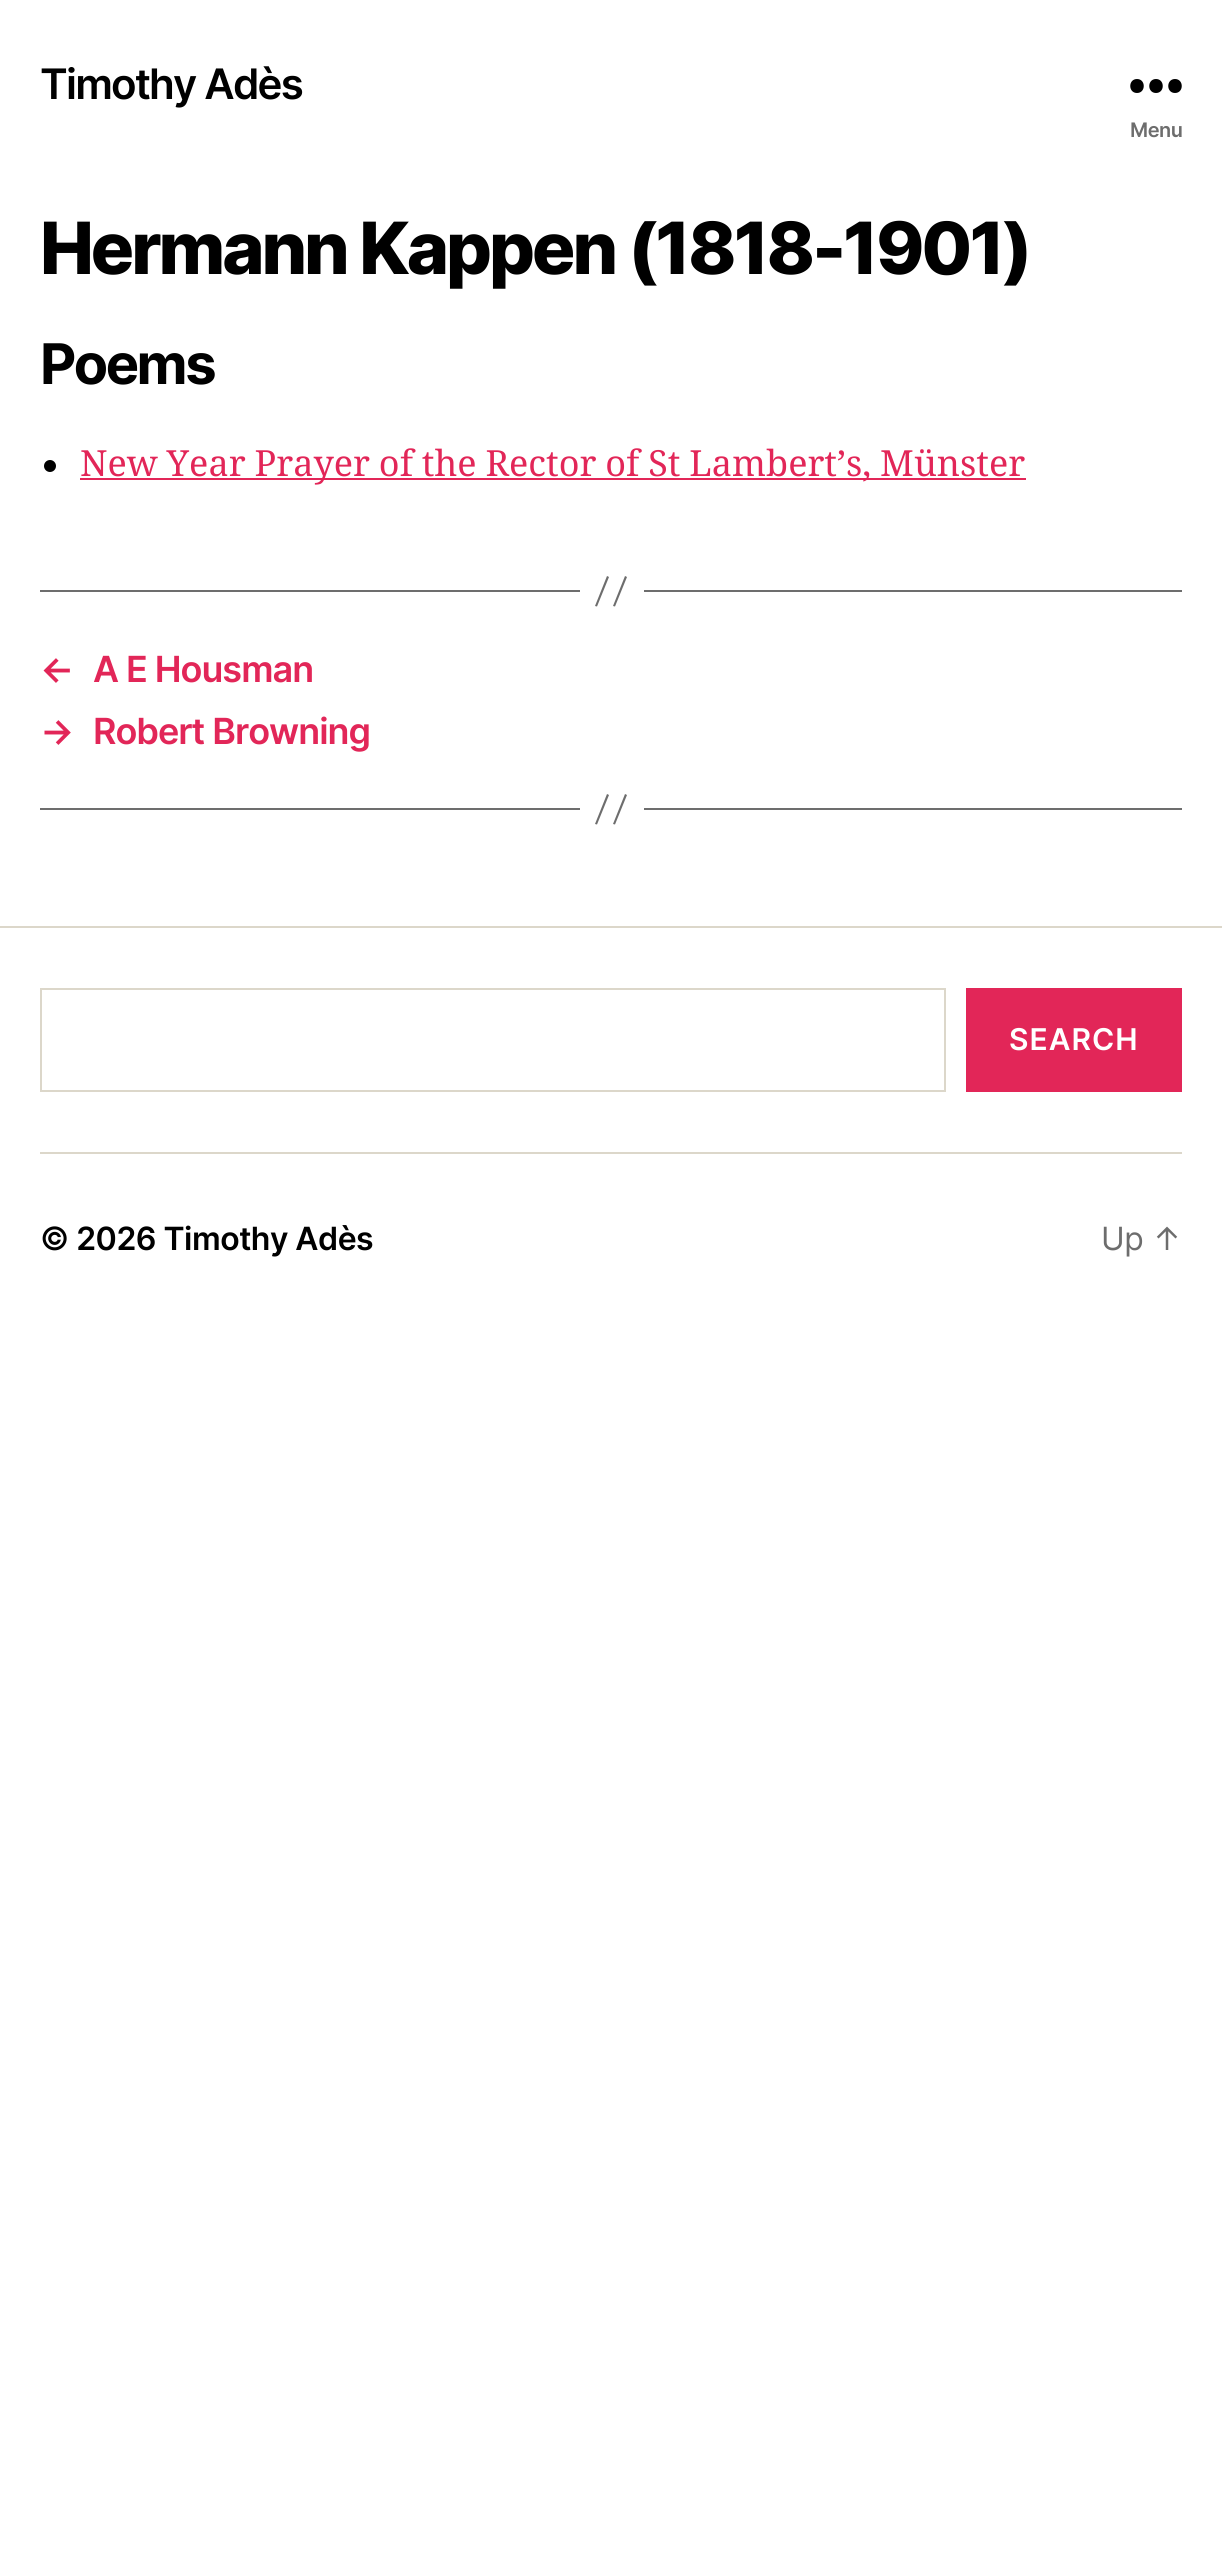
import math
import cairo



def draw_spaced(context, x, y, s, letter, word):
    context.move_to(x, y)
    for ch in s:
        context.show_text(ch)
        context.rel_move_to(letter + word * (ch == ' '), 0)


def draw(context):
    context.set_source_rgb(1, 1, 1)
    context.paint()
    context.set_source_rgb(0, 0, 0)
    context.set_fill_rule(cairo.FillRule.EVEN_ODD)
    context.new_path()
    context.move_to(1137, 93)
    context.curve_to(1128, 93, 1128, 79, 1137, 79)
    context.curve_to(1146, 79, 1146, 93, 1137, 93)
    context.close_path()
    context.move_to(1156, 93)
    context.curve_to(1147, 93, 1147, 79, 1156, 79)
    context.curve_to(1165, 79, 1165, 93, 1156, 93)
    context.close_path()
    context.move_to(1175, 93)
    context.curve_to(1166, 93, 1166, 79, 1175, 79)
    context.curve_to(1184, 79, 1184, 93, 1175, 93)
    context.close_path()
    context.fill()
    context.arc(50, 466, 6, 0, 2 * math.pi)
    context.fill()
    context.set_source_rgb(226 / 255, 38 / 255, 88 / 255)
    context.rectangle(80, 478, 946, 2)
    context.fill()
    context.set_source_rgb(109 / 255, 109 / 255, 109 / 255)
    context.rectangle(644, 590, 538, 2)
    context.fill()
    context.rectangle(40, 590, 540, 2)
    context.fill()
    context.set_fill_rule(cairo.FillRule.WINDING)
    context.new_path()
    context.move_to(607, 576)
    context.line_to(609, 577)
    context.line_to(597, 606.5)
    context.line_to(595, 606)
    context.close_path()
    context.move_to(625, 576)
    context.line_to(627, 577)
    context.line_to(615, 606.5)
    context.line_to(613, 606)
    context.close_path()
    context.fill()
    context.rectangle(644, 808, 538, 2)
    context.fill()
    context.rectangle(40, 808, 540, 2)
    context.fill()
    context.new_path()
    context.move_to(607, 794)
    context.line_to(609, 795)
    context.line_to(597, 824.5)
    context.line_to(595, 824)
    context.close_path()
    context.move_to(625, 794)
    context.line_to(627, 795)
    context.line_to(615, 824.5)
    context.line_to(613, 824)
    context.close_path()
    context.fill()
    context.set_source_rgb(220 / 255, 215 / 255, 202 / 255)
    context.rectangle(0, 926, 1222, 2)
    context.fill()
    context.rectangle(40, 1152, 1142, 2)
    context.fill()
    context.rectangle(41, 989, 904, 102)
    context.stroke()
    context.set_source_rgb(226 / 255, 38 / 255, 88 / 255)
    context.rectangle(966, 988, 216, 104)
    context.fill()
    context.select_font_face("Inter SemiBold")
    context.set_font_size(42)
    context.set_source_rgb(0, 0, 0)
    draw_spaced(context, 40, 99, "Timothy Adès", -1.75, 0)
    context.set_font_size(20)
    context.set_source_rgb(109 / 255, 109 / 255, 109 / 255)
    draw_spaced(context, 1130, 137, "Menu", -0.5, 0)
    context.select_font_face("Inter ExtraBold")
    context.set_font_size(72)
    context.set_source_rgb(0, 0, 0)
    draw_spaced(context, 40, 274, "Hermann Kappen (1818-1901)", -3, 0)
    context.select_font_face("Inter", cairo.FontSlant.NORMAL, cairo.FontWeight.BOLD)
    context.set_font_size(56)
    draw_spaced(context, 40, 384, "Poems", -2.5, 0)
    context.select_font_face("Noto Serif")
    context.set_font_size(36)
    context.set_source_rgb(226 / 255, 38 / 255, 88 / 255)
    draw_spaced(context, 80, 476, "New Year Prayer of the Rector of St Lambert’s, Münster", 0, -0.5)
    context.select_font_face("Inter SemiBold")
    draw_spaced(context, 40, 682, "←", -1, 0)
    draw_spaced(context, 93, 682, "A E Housman", -1, 0)
    draw_spaced(context, 40, 744, "→", -1, 0)
    draw_spaced(context, 93, 744, "Robert Browning", -1, 0)
    context.set_font_size(30)
    context.set_source_rgb(1, 1, 1)
    draw_spaced(context, 1009, 1050, "SEARCH", 1, 0)
    context.set_font_size(32)
    context.set_source_rgb(0, 0, 0)
    draw_spaced(context, 40, 1250, "© 2026 Timothy Adès", -0.5, 0)
    context.select_font_face("Inter")
    context.set_source_rgb(109 / 255, 109 / 255, 109 / 255)
    draw_spaced(context, 1101, 1250, "Up ↑", -0.5, 0)


surface = cairo.ImageSurface(cairo.Format.RGB24, 1222, 2552)
context = cairo.Context(surface)
options = cairo.FontOptions()
options.set_hint_metrics(cairo.HintMetrics.OFF)
options.set_hint_style(cairo.HintStyle.NONE)
context.set_font_options(options)
context.set_miter_limit(4)
draw(context)
surface.write_to_png("out.png")
